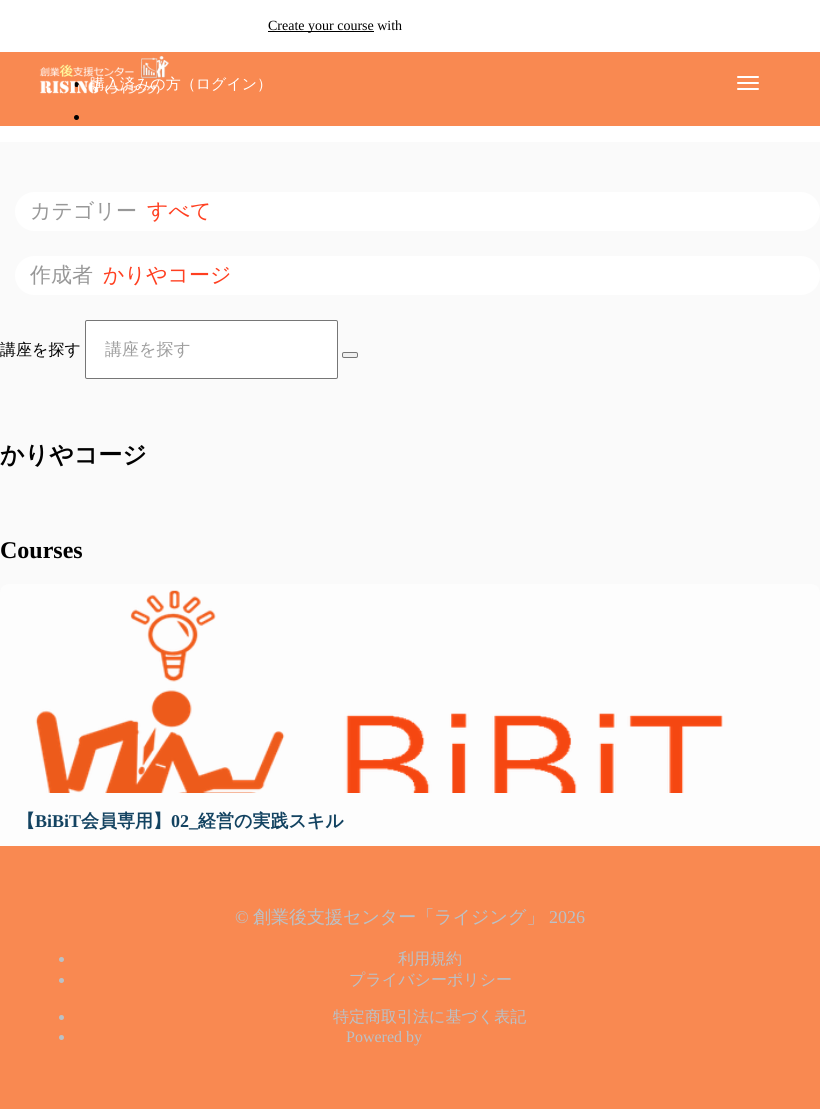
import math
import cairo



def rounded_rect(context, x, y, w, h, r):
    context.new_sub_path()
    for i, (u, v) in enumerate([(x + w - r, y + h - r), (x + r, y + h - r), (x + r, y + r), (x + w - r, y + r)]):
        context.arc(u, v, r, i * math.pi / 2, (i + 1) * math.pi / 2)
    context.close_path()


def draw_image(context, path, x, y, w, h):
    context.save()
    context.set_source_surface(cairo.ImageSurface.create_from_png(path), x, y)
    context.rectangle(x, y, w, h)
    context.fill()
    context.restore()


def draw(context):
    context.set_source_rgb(1, 1, 1)
    context.paint()
    context.set_source_rgb(0, 0, 0)
    context.rectangle(268, 31, 106, 1)
    context.fill()
    context.set_source_rgb(249 / 255, 137 / 255, 81 / 255)
    context.rectangle(0, 52, 820, 74)
    context.fill()
    context.set_source_rgb(0, 0, 0)
    context.arc(76.5, 84.5, 2.5, 0, 2 * math.pi)
    context.fill()
    context.arc(76.5, 117.5, 2.5, 0, 2 * math.pi)
    context.fill()
    context.set_source_rgb(1, 1, 1)
    rounded_rect(context, 737, 76, 22, 2, 1)
    context.fill()
    rounded_rect(context, 737, 82, 22, 2, 1)
    context.fill()
    rounded_rect(context, 737, 88, 22, 2, 1)
    context.fill()
    context.set_source_rgb(250 / 255, 250 / 255, 250 / 255)
    context.rectangle(0, 142, 820, 451)
    context.fill()
    context.set_source_rgb(1, 1, 1)
    rounded_rect(context, 15, 192, 805, 39, 19.5)
    context.fill()
    rounded_rect(context, 15, 256, 805, 39, 19.5)
    context.fill()
    rounded_rect(context, 85.5, 320.5, 252, 58, 1.5)
    context.fill_preserve()
    context.set_source_rgb(118 / 255, 118 / 255, 118 / 255)
    context.set_line_width(1)
    context.stroke()
    context.set_source_rgb(239 / 255, 239 / 255, 239 / 255)
    rounded_rect(context, 342.5, 352.5, 15, 5, 1.5)
    context.fill_preserve()
    context.set_source_rgb(118 / 255, 118 / 255, 118 / 255)
    context.stroke()
    context.set_source_rgb(253 / 255, 253 / 255, 253 / 255)
    rounded_rect(context, 0, 584, 820, 392, 9)
    context.fill()
    draw_image(context, "images/2.png", 35, 590, 688, 203)
    context.set_source_rgb(249 / 255, 137 / 255, 81 / 255)
    context.rectangle(0, 846, 820, 263)
    context.fill()
    context.set_source_rgb(186 / 255, 193 / 255, 199 / 255)
    context.arc(61.5, 959.5, 2.5, 0, 2 * math.pi)
    context.fill()
    context.arc(61.5, 980.5, 2.5, 0, 2 * math.pi)
    context.fill()
    context.arc(61.5, 1017.5, 2.5, 0, 2 * math.pi)
    context.fill()
    context.arc(61.5, 1037.5, 2.5, 0, 2 * math.pi)
    context.fill()
    context.select_font_face("Liberation Serif")
    context.set_font_size(14)
    context.set_source_rgb(0, 0, 0)
    context.move_to(268, 30)
    context.show_text("Create your course with")
    context.select_font_face("WenQuanYi Zen Hei Medium")
    context.set_font_size(15)
    context.set_source_rgb(1, 1, 1)
    context.move_to(90, 89)
    context.show_text("購入済みの方（ログイン）")
    draw_image(context, "images/1.png", 39, 56, 130, 39)
    context.set_font_size(21)
    context.set_source_rgb(152 / 255, 152 / 255, 152 / 255)
    context.move_to(30, 218)
    context.show_text("カテゴリー")
    context.set_source_rgb(1, 63 / 255, 32 / 255)
    context.move_to(147, 218)
    context.show_text("すべて")
    context.set_source_rgb(152 / 255, 152 / 255, 152 / 255)
    context.move_to(30, 282)
    context.show_text("作成者")
    context.set_source_rgb(1, 63 / 255, 32 / 255)
    context.move_to(103, 282)
    context.show_text("かりやコージ")
    context.set_font_size(16)
    context.set_source_rgb(0, 0, 0)
    context.move_to(0, 355)
    context.show_text("講座を探す")
    context.set_font_size(17)
    context.set_source_rgb(158 / 255, 158 / 255, 158 / 255)
    context.move_to(105, 355)
    context.show_text("講座を探す")
    context.select_font_face("WenQuanYi Zen Hei", cairo.FontSlant.NORMAL, cairo.FontWeight.BOLD)
    context.set_font_size(24)
    context.set_source_rgb(0, 0, 0)
    context.move_to(0, 463)
    context.show_text("かりやコージ")
    context.select_font_face("Liberation Serif", cairo.FontSlant.NORMAL, cairo.FontWeight.BOLD)
    context.move_to(0, 558)
    context.show_text("Courses")
    context.select_font_face("WenQuanYi Zen Hei", cairo.FontSlant.NORMAL, cairo.FontWeight.BOLD)
    context.set_font_size(18)
    context.set_source_rgb(19 / 255, 67 / 255, 97 / 255)
    context.move_to(17, 827)
    context.show_text("【")
    context.select_font_face("Liberation Serif", cairo.FontSlant.NORMAL, cairo.FontWeight.BOLD)
    context.move_to(35, 827)
    context.show_text("BiBiT")
    context.select_font_face("WenQuanYi Zen Hei", cairo.FontSlant.NORMAL, cairo.FontWeight.BOLD)
    context.move_to(81, 827)
    context.show_text("会員専用】")
    context.select_font_face("Liberation Serif", cairo.FontSlant.NORMAL, cairo.FontWeight.BOLD)
    context.move_to(171, 827)
    context.show_text("02_")
    context.select_font_face("WenQuanYi Zen Hei", cairo.FontSlant.NORMAL, cairo.FontWeight.BOLD)
    context.move_to(198, 827)
    context.show_text("経営の実践スキル")
    context.select_font_face("Liberation Serif")
    context.set_source_rgb(186 / 255, 193 / 255, 199 / 255)
    context.move_to(235, 923)
    context.show_text("©")
    context.select_font_face("WenQuanYi Zen Hei Medium")
    context.move_to(253, 923)
    context.show_text("創業後支援センター「ライジング」")
    context.select_font_face("Liberation Serif")
    context.move_to(549, 923)
    context.show_text("2026")
    context.select_font_face("WenQuanYi Zen Hei Medium")
    context.set_font_size(16)
    context.move_to(398, 964)
    context.show_text("利用規約")
    context.move_to(349, 985)
    context.show_text("プライバシーポリシー")
    context.move_to(333, 1022)
    context.show_text("特定商取引法に基づく表記")
    context.select_font_face("Liberation Serif")
    context.move_to(346, 1042)
    context.show_text("Powered by")


surface = cairo.ImageSurface(cairo.Format.RGB24, 820, 1109)
context = cairo.Context(surface)
options = cairo.FontOptions()
options.set_hint_metrics(cairo.HintMetrics.OFF)
options.set_hint_style(cairo.HintStyle.NONE)
context.set_font_options(options)
context.set_miter_limit(4)
draw(context)
surface.write_to_png("out.png")
